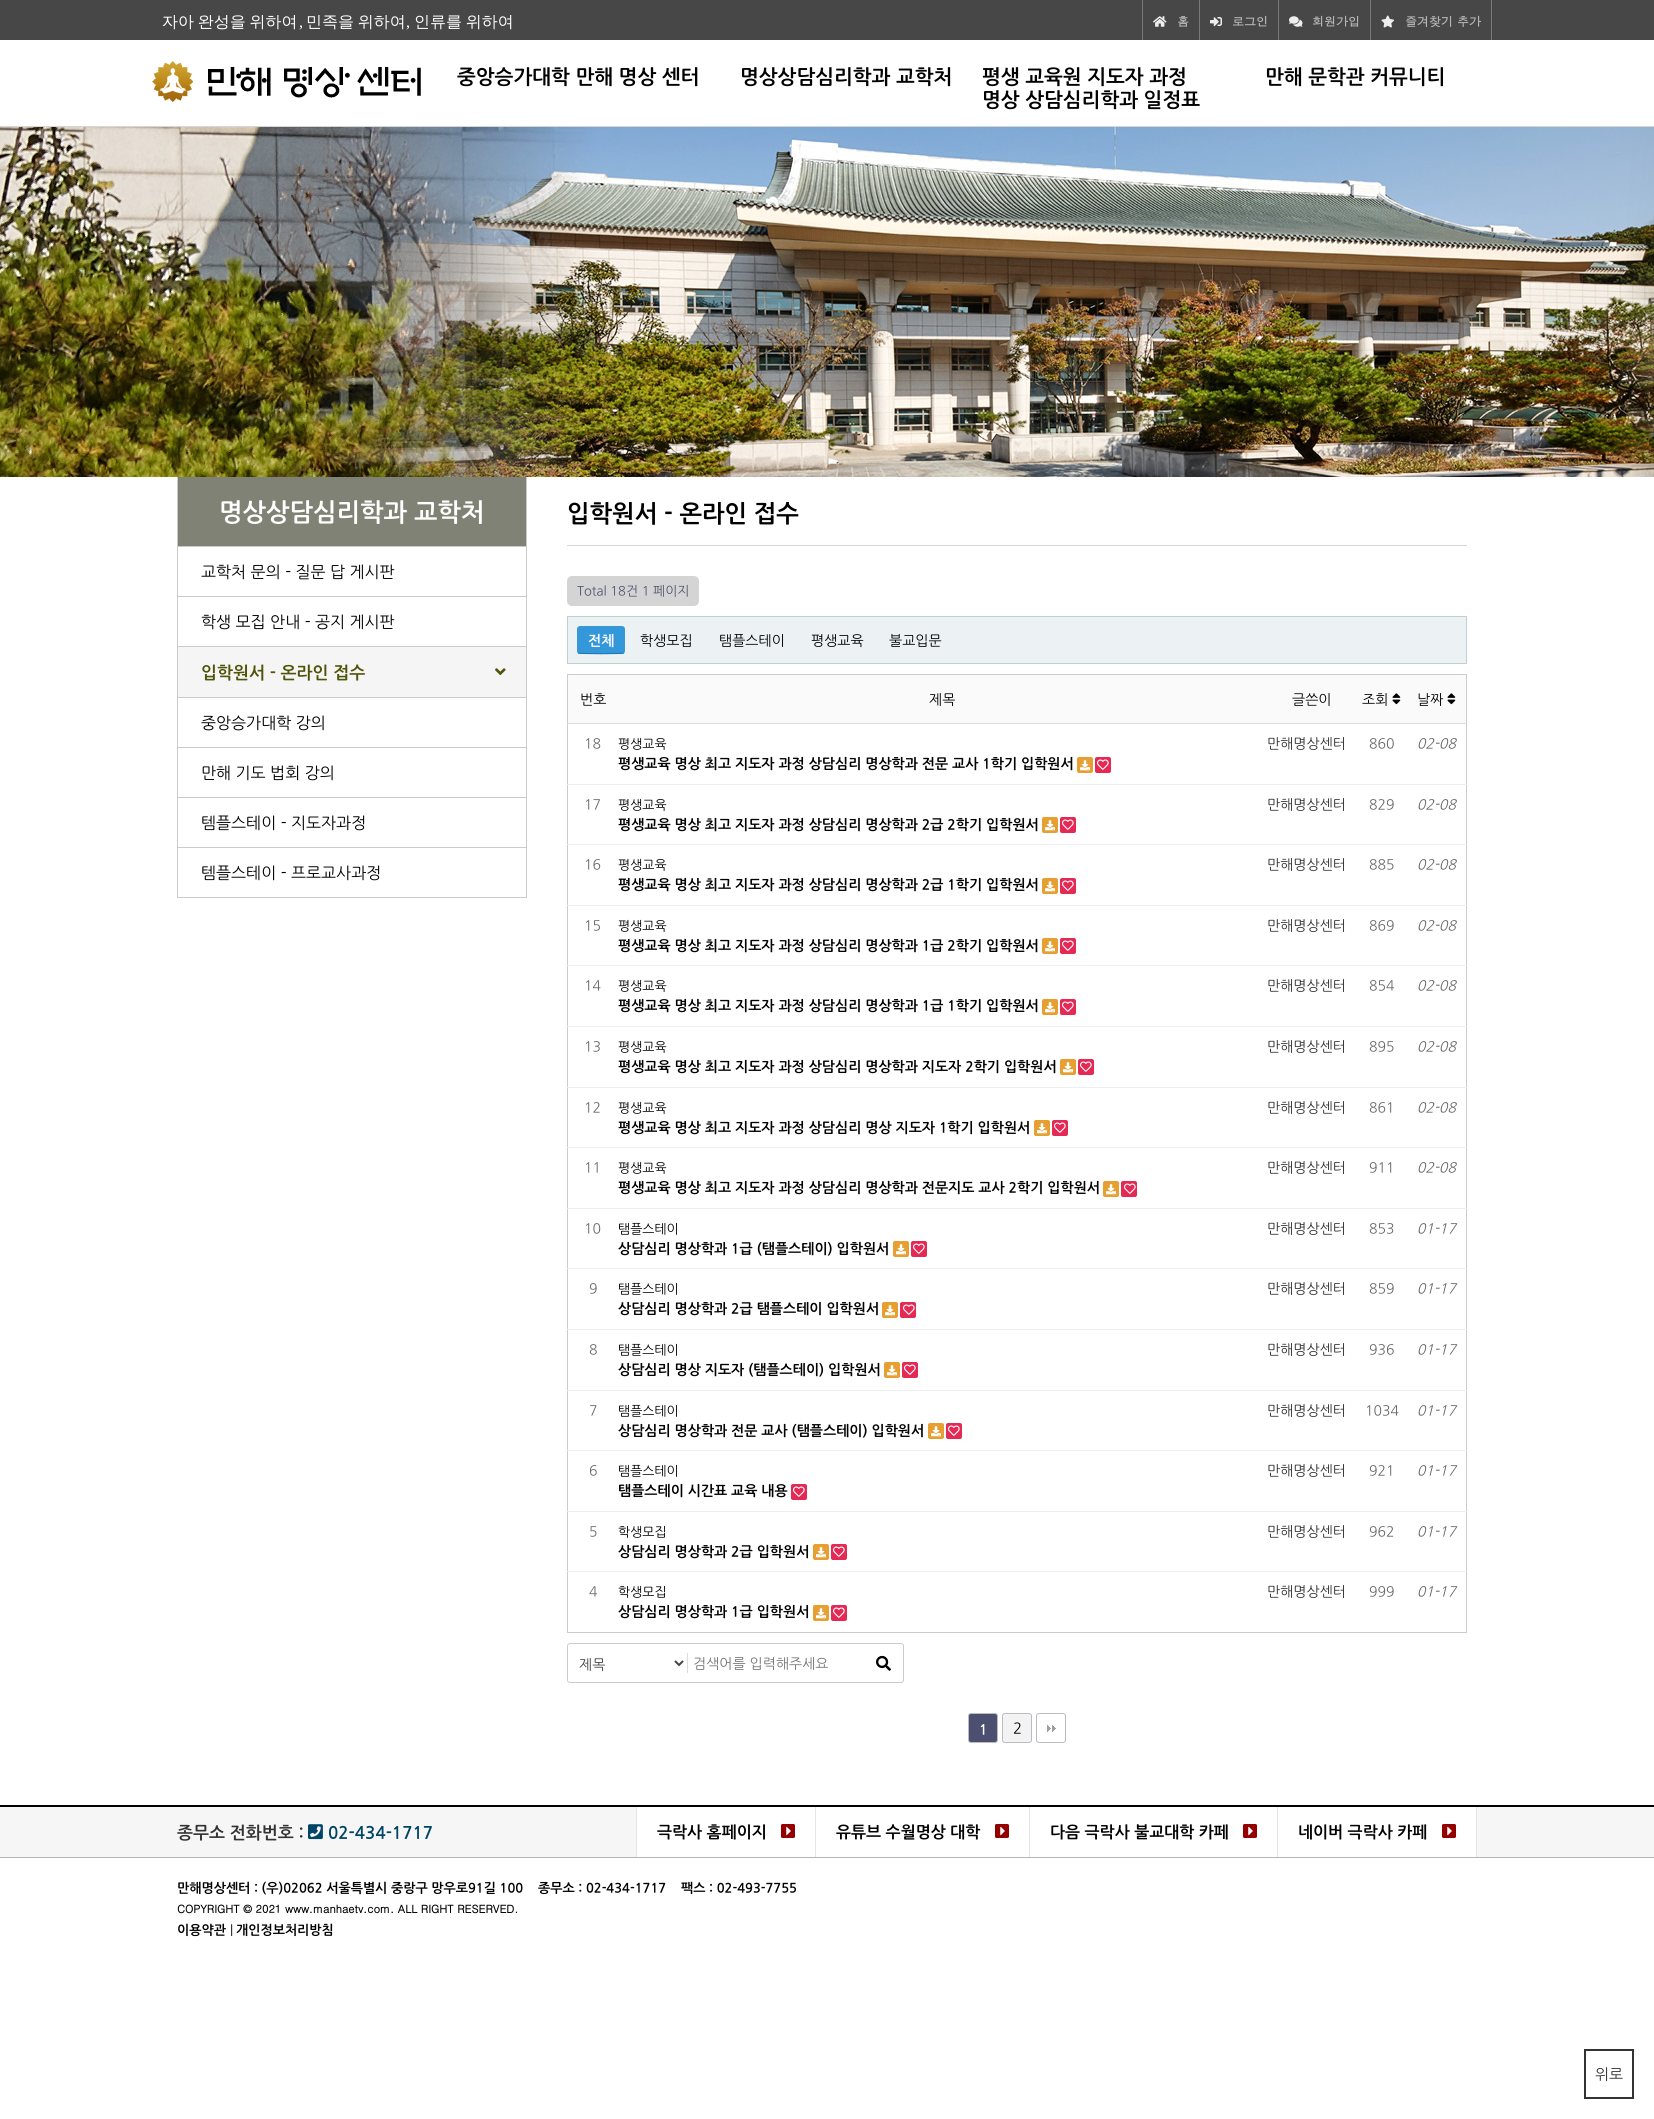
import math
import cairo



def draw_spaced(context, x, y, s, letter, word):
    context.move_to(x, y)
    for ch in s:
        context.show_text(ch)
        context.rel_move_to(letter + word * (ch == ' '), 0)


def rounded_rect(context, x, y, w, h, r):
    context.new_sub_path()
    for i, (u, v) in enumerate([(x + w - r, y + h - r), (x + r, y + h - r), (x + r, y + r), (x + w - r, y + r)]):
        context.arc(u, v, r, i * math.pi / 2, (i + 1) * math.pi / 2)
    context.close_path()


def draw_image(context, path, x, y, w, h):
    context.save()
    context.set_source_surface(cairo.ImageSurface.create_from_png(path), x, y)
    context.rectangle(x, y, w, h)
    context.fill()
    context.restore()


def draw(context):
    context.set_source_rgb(1, 1, 1)
    context.paint()
    context.set_source_rgb(71 / 255, 71 / 255, 71 / 255)
    context.rectangle(0, 0, 1654, 40)
    context.fill()
    context.set_source_rgb(122 / 255, 122 / 255, 122 / 255)
    context.rectangle(1142, 0, 1, 40)
    context.fill()
    context.rectangle(1199, 0, 1, 40)
    context.fill()
    draw_image(context, "images/1.png", 1153, 16, 14, 11)
    context.rectangle(1278, 0, 1, 40)
    context.fill()
    draw_image(context, "images/2.png", 1210, 17, 12, 10)
    context.rectangle(1370, 0, 1, 40)
    context.fill()
    draw_image(context, "images/3.png", 1289, 16, 14, 11)
    context.rectangle(1491, 0, 1, 40)
    context.fill()
    draw_image(context, "images/4.png", 1381, 15, 13, 13)
    context.set_source_rgb(214 / 255, 214 / 255, 214 / 255)
    context.rectangle(0, 126, 1654, 1)
    context.fill()
    draw_image(context, "images/5.png", 152, 61, 269, 41)
    draw_image(context, "images/6.png", 0, 127, 1654, 350)
    context.set_source_rgb(127 / 255, 130 / 255, 116 / 255)
    context.rectangle(178, 477, 348, 69)
    context.fill()
    context.set_source_rgb(203 / 255, 203 / 255, 203 / 255)
    context.rectangle(526, 477, 1, 421)
    context.fill()
    context.rectangle(177, 897, 350, 1)
    context.fill()
    context.rectangle(177, 477, 1, 421)
    context.fill()
    context.rectangle(178, 546, 348, 1)
    context.fill()
    context.rectangle(178, 596, 348, 1)
    context.fill()
    context.set_source_rgb(245 / 255, 245 / 255, 245 / 255)
    context.rectangle(178, 647, 348, 50)
    context.fill()
    context.set_source_rgb(203 / 255, 203 / 255, 203 / 255)
    context.rectangle(178, 646, 348, 1)
    context.fill()
    draw_image(context, "images/7.png", 495, 668, 11, 7)
    context.rectangle(178, 697, 348, 1)
    context.fill()
    context.rectangle(178, 747, 348, 1)
    context.fill()
    context.rectangle(178, 797, 348, 1)
    context.fill()
    context.rectangle(178, 847, 348, 1)
    context.fill()
    context.set_source_rgb(213 / 255, 213 / 255, 213 / 255)
    context.rectangle(567, 545, 900, 1)
    context.fill()
    context.set_source_rgb(212 / 255, 212 / 255, 212 / 255)
    rounded_rect(context, 567, 576, 132, 30, 5)
    context.fill()
    context.set_source_rgb(236 / 255, 242 / 255, 243 / 255)
    context.rectangle(567.5, 616.5, 899, 47)
    context.fill_preserve()
    context.set_source_rgb(190 / 255, 209 / 255, 212 / 255)
    context.set_line_width(1)
    context.stroke()
    context.set_source_rgb(52 / 255, 151 / 255, 217 / 255)
    rounded_rect(context, 577, 626, 48, 28, 3)
    context.fill()
    context.new_path()
    context.move_to(624, 653)
    context.curve_to(622.5, 654, 579.5, 654, 578, 653)
    context.set_source_rgb(25 / 255, 119 / 255, 181 / 255)
    context.stroke()
    context.set_source_rgb(204 / 255, 204 / 255, 204 / 255)
    context.rectangle(567, 674, 900, 1)
    context.fill()
    context.rectangle(1466, 674, 1, 959)
    context.fill()
    context.rectangle(567, 1632, 900, 1)
    context.fill()
    context.rectangle(567, 674, 1, 959)
    context.fill()
    context.set_source_rgb(250 / 255, 250 / 255, 250 / 255)
    context.rectangle(568, 675, 898, 48)
    context.fill()
    draw_image(context, "images/8.png", 1392, 693, 9, 12)
    context.set_source_rgb(221 / 255, 221 / 255, 221 / 255)
    context.rectangle(567, 723, 900, 1)
    context.fill()
    draw_image(context, "images/8.png", 1447, 693, 9, 12)
    context.set_source_rgb(232 / 255, 159 / 255, 49 / 255)
    rounded_rect(context, 1077, 757, 16, 16, 2)
    context.fill()
    draw_image(context, "images/9.png", 1080, 760, 10, 11)
    context.set_source_rgb(229 / 255, 41 / 255, 85 / 255)
    rounded_rect(context, 1095, 757, 16, 16, 2)
    context.fill()
    draw_image(context, "images/10.png", 1097, 759, 12, 11)
    context.set_source_rgb(232 / 255, 159 / 255, 49 / 255)
    rounded_rect(context, 1042, 817, 16, 16, 2)
    context.fill()
    draw_image(context, "images/9.png", 1045, 820, 10, 11)
    context.set_source_rgb(229 / 255, 41 / 255, 85 / 255)
    rounded_rect(context, 1060, 817, 16, 16, 2)
    context.fill()
    draw_image(context, "images/10.png", 1062, 819, 12, 11)
    context.set_source_rgb(236 / 255, 240 / 255, 241 / 255)
    context.rectangle(567, 784, 900, 1)
    context.fill()
    context.set_source_rgb(232 / 255, 159 / 255, 49 / 255)
    rounded_rect(context, 1042, 878, 16, 16, 2)
    context.fill()
    draw_image(context, "images/9.png", 1045, 881, 10, 11)
    context.set_source_rgb(229 / 255, 41 / 255, 85 / 255)
    rounded_rect(context, 1060, 878, 16, 16, 2)
    context.fill()
    draw_image(context, "images/10.png", 1062, 880, 12, 11)
    context.set_source_rgb(236 / 255, 240 / 255, 241 / 255)
    context.rectangle(567, 844, 900, 1)
    context.fill()
    context.set_source_rgb(232 / 255, 159 / 255, 49 / 255)
    rounded_rect(context, 1042, 938, 16, 16, 2)
    context.fill()
    draw_image(context, "images/9.png", 1045, 941, 10, 11)
    context.set_source_rgb(229 / 255, 41 / 255, 85 / 255)
    rounded_rect(context, 1060, 938, 16, 16, 2)
    context.fill()
    draw_image(context, "images/10.png", 1062, 940, 12, 11)
    context.set_source_rgb(236 / 255, 240 / 255, 241 / 255)
    context.rectangle(567, 905, 900, 1)
    context.fill()
    context.set_source_rgb(232 / 255, 159 / 255, 49 / 255)
    rounded_rect(context, 1042, 999, 16, 16, 2)
    context.fill()
    draw_image(context, "images/9.png", 1045, 1002, 10, 11)
    context.set_source_rgb(229 / 255, 41 / 255, 85 / 255)
    rounded_rect(context, 1060, 999, 16, 16, 2)
    context.fill()
    draw_image(context, "images/10.png", 1062, 1001, 12, 11)
    context.set_source_rgb(236 / 255, 240 / 255, 241 / 255)
    context.rectangle(567, 965, 900, 1)
    context.fill()
    context.set_source_rgb(232 / 255, 159 / 255, 49 / 255)
    rounded_rect(context, 1060, 1059, 16, 16, 2)
    context.fill()
    draw_image(context, "images/9.png", 1063, 1062, 10, 11)
    context.set_source_rgb(229 / 255, 41 / 255, 85 / 255)
    rounded_rect(context, 1078, 1059, 16, 16, 2)
    context.fill()
    draw_image(context, "images/10.png", 1080, 1061, 12, 11)
    context.set_source_rgb(236 / 255, 240 / 255, 241 / 255)
    context.rectangle(567, 1026, 900, 1)
    context.fill()
    context.set_source_rgb(232 / 255, 159 / 255, 49 / 255)
    rounded_rect(context, 1034, 1120, 16, 16, 2)
    context.fill()
    draw_image(context, "images/9.png", 1037, 1123, 10, 11)
    context.set_source_rgb(229 / 255, 41 / 255, 85 / 255)
    rounded_rect(context, 1052, 1120, 16, 16, 2)
    context.fill()
    draw_image(context, "images/10.png", 1054, 1122, 12, 11)
    context.set_source_rgb(236 / 255, 240 / 255, 241 / 255)
    context.rectangle(567, 1087, 900, 1)
    context.fill()
    context.set_source_rgb(232 / 255, 159 / 255, 49 / 255)
    rounded_rect(context, 1103, 1181, 16, 16, 2)
    context.fill()
    draw_image(context, "images/9.png", 1106, 1184, 10, 11)
    context.set_source_rgb(229 / 255, 41 / 255, 85 / 255)
    rounded_rect(context, 1121, 1181, 16, 16, 2)
    context.fill()
    draw_image(context, "images/10.png", 1124, 1183, 12, 11)
    context.set_source_rgb(236 / 255, 240 / 255, 241 / 255)
    context.rectangle(567, 1147, 900, 1)
    context.fill()
    context.set_source_rgb(232 / 255, 159 / 255, 49 / 255)
    rounded_rect(context, 893, 1241, 16, 16, 2)
    context.fill()
    draw_image(context, "images/9.png", 896, 1244, 10, 11)
    context.set_source_rgb(229 / 255, 41 / 255, 85 / 255)
    rounded_rect(context, 911, 1241, 16, 16, 2)
    context.fill()
    draw_image(context, "images/10.png", 913, 1243, 12, 11)
    context.set_source_rgb(236 / 255, 240 / 255, 241 / 255)
    context.rectangle(567, 1208, 900, 1)
    context.fill()
    context.set_source_rgb(232 / 255, 159 / 255, 49 / 255)
    rounded_rect(context, 882, 1302, 16, 16, 2)
    context.fill()
    draw_image(context, "images/9.png", 885, 1305, 10, 11)
    context.set_source_rgb(229 / 255, 41 / 255, 85 / 255)
    rounded_rect(context, 900, 1302, 16, 16, 2)
    context.fill()
    draw_image(context, "images/10.png", 903, 1304, 12, 11)
    context.set_source_rgb(236 / 255, 240 / 255, 241 / 255)
    context.rectangle(567, 1268, 900, 1)
    context.fill()
    context.set_source_rgb(232 / 255, 159 / 255, 49 / 255)
    rounded_rect(context, 884, 1362, 16, 16, 2)
    context.fill()
    draw_image(context, "images/9.png", 887, 1365, 10, 11)
    context.set_source_rgb(229 / 255, 41 / 255, 85 / 255)
    rounded_rect(context, 902, 1362, 16, 16, 2)
    context.fill()
    draw_image(context, "images/10.png", 904, 1364, 12, 11)
    context.set_source_rgb(236 / 255, 240 / 255, 241 / 255)
    context.rectangle(567, 1329, 900, 1)
    context.fill()
    context.set_source_rgb(232 / 255, 159 / 255, 49 / 255)
    rounded_rect(context, 928, 1423, 16, 16, 2)
    context.fill()
    draw_image(context, "images/9.png", 931, 1426, 10, 11)
    context.set_source_rgb(229 / 255, 41 / 255, 85 / 255)
    rounded_rect(context, 946, 1423, 16, 16, 2)
    context.fill()
    draw_image(context, "images/10.png", 948, 1425, 12, 11)
    context.set_source_rgb(236 / 255, 240 / 255, 241 / 255)
    context.rectangle(567, 1390, 900, 1)
    context.fill()
    context.set_source_rgb(229 / 255, 41 / 255, 85 / 255)
    rounded_rect(context, 791, 1484, 16, 16, 2)
    context.fill()
    draw_image(context, "images/10.png", 793, 1486, 12, 11)
    context.set_source_rgb(236 / 255, 240 / 255, 241 / 255)
    context.rectangle(567, 1450, 900, 1)
    context.fill()
    context.set_source_rgb(232 / 255, 159 / 255, 49 / 255)
    rounded_rect(context, 813, 1544, 16, 16, 2)
    context.fill()
    draw_image(context, "images/9.png", 816, 1547, 10, 11)
    context.set_source_rgb(229 / 255, 41 / 255, 85 / 255)
    rounded_rect(context, 831, 1544, 16, 16, 2)
    context.fill()
    draw_image(context, "images/10.png", 833, 1546, 12, 11)
    context.set_source_rgb(236 / 255, 240 / 255, 241 / 255)
    context.rectangle(567, 1511, 900, 1)
    context.fill()
    context.set_source_rgb(232 / 255, 159 / 255, 49 / 255)
    rounded_rect(context, 813, 1605, 16, 16, 2)
    context.fill()
    draw_image(context, "images/9.png", 816, 1608, 10, 11)
    context.set_source_rgb(229 / 255, 41 / 255, 85 / 255)
    rounded_rect(context, 831, 1605, 16, 16, 2)
    context.fill()
    draw_image(context, "images/10.png", 833, 1607, 12, 11)
    context.set_source_rgb(236 / 255, 240 / 255, 241 / 255)
    context.rectangle(567, 1571, 900, 1)
    context.fill()
    rounded_rect(context, 567.5, 1643.5, 336, 39, 2.5)
    context.set_source_rgb(204 / 255, 204 / 255, 204 / 255)
    context.stroke()
    context.set_source_rgb(221 / 255, 221 / 255, 221 / 255)
    context.rectangle(687, 1653, 1, 20)
    context.fill()
    context.new_path()
    context.move_to(675, 1661)
    context.line_to(679, 1665)
    context.line_to(683, 1661)
    context.set_source_rgb(68 / 255, 68 / 255, 68 / 255)
    context.set_line_width(2)
    context.stroke()
    draw_image(context, "images/11.png", 876, 1655, 15, 16)
    context.set_source_rgb(76 / 255, 79 / 255, 111 / 255)
    rounded_rect(context, 968.5, 1713.5, 29, 29, 2.5)
    context.fill_preserve()
    context.set_source_rgb(187 / 255, 188 / 255, 195 / 255)
    context.set_line_width(1)
    context.stroke()
    context.set_source_rgb(243 / 255, 243 / 255, 243 / 255)
    rounded_rect(context, 1002.5, 1713.5, 29, 29, 2.5)
    context.fill_preserve()
    context.set_source_rgb(187 / 255, 188 / 255, 195 / 255)
    context.stroke()
    draw_image(context, "images/12.png", 1047, 1725, 9, 7)
    rounded_rect(context, 1036.5, 1713.5, 29, 29, 2.5)
    context.set_source_rgb(187 / 255, 187 / 255, 187 / 255)
    context.stroke()
    context.rectangle(1585, 2050, 48, 48)
    context.set_source_rgb(51 / 255, 51 / 255, 51 / 255)
    context.set_line_width(2)
    context.stroke()
    context.set_source_rgb(246 / 255, 246 / 255, 246 / 255)
    context.rectangle(0, 1807, 1654, 50)
    context.fill()
    context.set_source_rgb(0, 0, 0)
    context.rectangle(0, 1805, 1654, 2)
    context.fill()
    context.set_source_rgb(181 / 255, 181 / 255, 181 / 255)
    context.rectangle(0, 1857, 1654, 1)
    context.fill()
    draw_image(context, "images/13.png", 308, 1824, 15, 16)
    context.set_source_rgb(1, 1, 1)
    context.rectangle(637, 1807, 839, 50)
    context.fill()
    context.set_source_rgb(229 / 255, 229 / 255, 229 / 255)
    context.rectangle(1476, 1807, 1, 50)
    context.fill()
    context.rectangle(636, 1807, 1, 50)
    context.fill()
    draw_image(context, "images/14.png", 781, 1824, 14, 14)
    context.rectangle(815, 1807, 1, 50)
    context.fill()
    draw_image(context, "images/14.png", 995, 1824, 14, 14)
    context.rectangle(1029, 1807, 1, 50)
    context.fill()
    draw_image(context, "images/14.png", 1243, 1824, 14, 14)
    context.rectangle(1277, 1807, 1, 50)
    context.fill()
    draw_image(context, "images/14.png", 1442, 1824, 14, 14)
    context.select_font_face("WenQuanYi Zen Hei Medium")
    context.set_font_size(16)
    context.set_source_rgb(1, 1, 1)
    draw_spaced(context, 162, 27, "자아 완성을 위하여", 0, -1)
    context.select_font_face("Liberation Serif")
    context.move_to(299, 27)
    context.show_text(",")
    context.select_font_face("WenQuanYi Zen Hei Medium")
    draw_spaced(context, 306, 27, "민족을 위하여", 0, -1)
    context.select_font_face("Liberation Serif")
    context.move_to(406, 27)
    context.show_text(",")
    context.select_font_face("WenQuanYi Zen Hei Medium")
    draw_spaced(context, 414, 27, "인류를 위하여", 0, -1)
    context.select_font_face("Dotum", cairo.FontSlant.NORMAL, cairo.FontWeight.BOLD)
    context.set_font_size(12)
    context.set_source_rgb(182 / 255, 182 / 255, 182 / 255)
    context.move_to(1177, 26)
    context.show_text("홈")
    context.move_to(1232, 26)
    context.show_text("로그인")
    context.move_to(1312, 26)
    context.show_text("회원가입")
    context.move_to(1405, 26)
    context.show_text("즐겨찾기 추가")
    context.select_font_face("NanumGothic", cairo.FontSlant.NORMAL, cairo.FontWeight.BOLD)
    context.set_font_size(20)
    context.set_source_rgb(0, 0, 0)
    context.move_to(457, 83)
    context.show_text("중앙승가대학 만해 명상 센터")
    context.move_to(740, 83)
    context.show_text("명상상담심리학과 교학처")
    context.move_to(982, 83)
    context.show_text("평생 교육원 지도자 과정")
    context.move_to(982, 106)
    context.show_text("명상 상담심리학과 일정표")
    context.move_to(1265, 83)
    context.show_text("만해 문학관 커뮤니티")
    context.set_font_size(25)
    context.set_source_rgb(1, 1, 1)
    context.move_to(219, 520)
    context.show_text("명상상담심리학과 교학처")
    context.select_font_face("NanumGothic")
    context.set_font_size(16)
    context.set_source_rgb(0, 0, 0)
    context.move_to(201, 577)
    context.show_text("교학처 문의 - 질문 답 게시판")
    context.move_to(201, 627)
    context.show_text("학생 모집 안내 - 공지 게시판")
    context.select_font_face("NanumGothic", cairo.FontSlant.NORMAL, cairo.FontWeight.BOLD)
    context.set_font_size(17)
    context.set_source_rgb(79 / 255, 84 / 255, 9 / 255)
    context.move_to(201, 678)
    context.show_text("입학원서 - 온라인 접수")
    context.select_font_face("NanumGothic")
    context.set_font_size(16)
    context.set_source_rgb(0, 0, 0)
    context.move_to(201, 728)
    context.show_text("중앙승가대학 강의")
    context.move_to(201, 778)
    context.show_text("만해 기도 법회 강의")
    context.move_to(201, 828)
    context.show_text("템플스테이 - 지도자과정")
    context.move_to(201, 878)
    context.show_text("템플스테이 - 프로교사과정")
    context.select_font_face("NanumGothic", cairo.FontSlant.NORMAL, cairo.FontWeight.BOLD)
    context.set_font_size(24)
    context.move_to(567, 521)
    context.show_text("입학원서 - 온라인 접수")
    context.select_font_face("NanumGothic")
    context.set_font_size(12.9)
    context.set_source_rgb(78 / 255, 84 / 255, 111 / 255)
    context.move_to(577, 595)
    context.show_text("Total 18건 1 페이지")
    context.select_font_face("NanumGothic", cairo.FontSlant.NORMAL, cairo.FontWeight.BOLD)
    context.set_font_size(14)
    context.set_source_rgb(1, 1, 1)
    context.move_to(588, 645)
    context.show_text("전체")
    context.select_font_face("NanumGothic")
    context.set_source_rgb(0, 0, 0)
    context.move_to(640, 645)
    context.show_text("학생모집")
    context.move_to(719, 645)
    context.show_text("탬플스테이")
    context.move_to(811, 645)
    context.show_text("평생교육")
    context.move_to(889, 645)
    context.show_text("불교입문")
    context.move_to(580, 704)
    context.show_text("번호")
    context.move_to(929, 704)
    context.show_text("제목")
    context.move_to(1292, 704)
    context.show_text("글쓴이")
    context.move_to(1362, 704)
    context.show_text("조회")
    context.move_to(1417, 704)
    context.show_text("날짜")
    context.set_source_rgb(102 / 255, 102 / 255, 102 / 255)
    context.move_to(584, 748)
    context.show_text("18")
    context.set_font_size(12.9)
    context.set_source_rgb(0, 0, 0)
    context.move_to(618, 748)
    context.show_text("평생교육")
    context.select_font_face("NanumGothic", cairo.FontSlant.NORMAL, cairo.FontWeight.BOLD)
    context.set_font_size(14)
    context.move_to(618, 768)
    context.show_text("평생교육 명상 최고 지도자 과정 상담심리 명상학과 전문 교사 1학기 입학원서")
    context.select_font_face("NanumGothic")
    context.set_source_rgb(51 / 255, 51 / 255, 51 / 255)
    context.move_to(1267, 748)
    context.show_text("만해명상센터")
    context.set_source_rgb(102 / 255, 102 / 255, 102 / 255)
    context.move_to(1369, 748)
    context.show_text("860")
    context.select_font_face("NanumGothic", cairo.FontSlant.ITALIC)
    context.move_to(1417, 748)
    context.show_text("02-08")
    context.select_font_face("NanumGothic")
    context.move_to(584, 809)
    context.show_text("17")
    context.set_font_size(12.9)
    context.set_source_rgb(0, 0, 0)
    context.move_to(618, 809)
    context.show_text("평생교육")
    context.select_font_face("NanumGothic", cairo.FontSlant.NORMAL, cairo.FontWeight.BOLD)
    context.set_font_size(14)
    context.move_to(618, 829)
    context.show_text("평생교육 명상 최고 지도자 과정 상담심리 명상학과 2급 2학기 입학원서")
    context.select_font_face("NanumGothic")
    context.set_source_rgb(51 / 255, 51 / 255, 51 / 255)
    context.move_to(1267, 809)
    context.show_text("만해명상센터")
    context.set_source_rgb(102 / 255, 102 / 255, 102 / 255)
    context.move_to(1369, 809)
    context.show_text("829")
    context.select_font_face("NanumGothic", cairo.FontSlant.ITALIC)
    context.move_to(1417, 809)
    context.show_text("02-08")
    context.select_font_face("NanumGothic")
    context.move_to(584, 869)
    context.show_text("16")
    context.set_font_size(12.9)
    context.set_source_rgb(0, 0, 0)
    context.move_to(618, 869)
    context.show_text("평생교육")
    context.select_font_face("NanumGothic", cairo.FontSlant.NORMAL, cairo.FontWeight.BOLD)
    context.set_font_size(14)
    context.move_to(618, 889)
    context.show_text("평생교육 명상 최고 지도자 과정 상담심리 명상학과 2급 1학기 입학원서")
    context.select_font_face("NanumGothic")
    context.set_source_rgb(51 / 255, 51 / 255, 51 / 255)
    context.move_to(1267, 869)
    context.show_text("만해명상센터")
    context.set_source_rgb(102 / 255, 102 / 255, 102 / 255)
    context.move_to(1369, 869)
    context.show_text("885")
    context.select_font_face("NanumGothic", cairo.FontSlant.ITALIC)
    context.move_to(1417, 869)
    context.show_text("02-08")
    context.select_font_face("NanumGothic")
    context.move_to(584, 930)
    context.show_text("15")
    context.set_font_size(12.9)
    context.set_source_rgb(0, 0, 0)
    context.move_to(618, 930)
    context.show_text("평생교육")
    context.select_font_face("NanumGothic", cairo.FontSlant.NORMAL, cairo.FontWeight.BOLD)
    context.set_font_size(14)
    context.move_to(618, 950)
    context.show_text("평생교육 명상 최고 지도자 과정 상담심리 명상학과 1급 2학기 입학원서")
    context.select_font_face("NanumGothic")
    context.set_source_rgb(51 / 255, 51 / 255, 51 / 255)
    context.move_to(1267, 930)
    context.show_text("만해명상센터")
    context.set_source_rgb(102 / 255, 102 / 255, 102 / 255)
    context.move_to(1369, 930)
    context.show_text("869")
    context.select_font_face("NanumGothic", cairo.FontSlant.ITALIC)
    context.move_to(1417, 930)
    context.show_text("02-08")
    context.select_font_face("NanumGothic")
    context.move_to(584, 990)
    context.show_text("14")
    context.set_font_size(12.9)
    context.set_source_rgb(0, 0, 0)
    context.move_to(618, 990)
    context.show_text("평생교육")
    context.select_font_face("NanumGothic", cairo.FontSlant.NORMAL, cairo.FontWeight.BOLD)
    context.set_font_size(14)
    context.move_to(618, 1010)
    context.show_text("평생교육 명상 최고 지도자 과정 상담심리 명상학과 1급 1학기 입학원서")
    context.select_font_face("NanumGothic")
    context.set_source_rgb(51 / 255, 51 / 255, 51 / 255)
    context.move_to(1267, 990)
    context.show_text("만해명상센터")
    context.set_source_rgb(102 / 255, 102 / 255, 102 / 255)
    context.move_to(1369, 990)
    context.show_text("854")
    context.select_font_face("NanumGothic", cairo.FontSlant.ITALIC)
    context.move_to(1417, 990)
    context.show_text("02-08")
    context.select_font_face("NanumGothic")
    context.move_to(584, 1051)
    context.show_text("13")
    context.set_font_size(12.9)
    context.set_source_rgb(0, 0, 0)
    context.move_to(618, 1051)
    context.show_text("평생교육")
    context.select_font_face("NanumGothic", cairo.FontSlant.NORMAL, cairo.FontWeight.BOLD)
    context.set_font_size(14)
    context.move_to(618, 1071)
    context.show_text("평생교육 명상 최고 지도자 과정 상담심리 명상학과 지도자 2학기 입학원서")
    context.select_font_face("NanumGothic")
    context.set_source_rgb(51 / 255, 51 / 255, 51 / 255)
    context.move_to(1267, 1051)
    context.show_text("만해명상센터")
    context.set_source_rgb(102 / 255, 102 / 255, 102 / 255)
    context.move_to(1369, 1051)
    context.show_text("895")
    context.select_font_face("NanumGothic", cairo.FontSlant.ITALIC)
    context.move_to(1417, 1051)
    context.show_text("02-08")
    context.select_font_face("NanumGothic")
    context.move_to(584, 1112)
    context.show_text("12")
    context.set_font_size(12.9)
    context.set_source_rgb(0, 0, 0)
    context.move_to(618, 1112)
    context.show_text("평생교육")
    context.select_font_face("NanumGothic", cairo.FontSlant.NORMAL, cairo.FontWeight.BOLD)
    context.set_font_size(14)
    context.move_to(618, 1132)
    context.show_text("평생교육 명상 최고 지도자 과정 상담심리 명상 지도자 1학기 입학원서")
    context.select_font_face("NanumGothic")
    context.set_source_rgb(51 / 255, 51 / 255, 51 / 255)
    context.move_to(1267, 1112)
    context.show_text("만해명상센터")
    context.set_source_rgb(102 / 255, 102 / 255, 102 / 255)
    context.move_to(1369, 1112)
    context.show_text("861")
    context.select_font_face("NanumGothic", cairo.FontSlant.ITALIC)
    context.move_to(1417, 1112)
    context.show_text("02-08")
    context.select_font_face("NanumGothic")
    context.move_to(584, 1172)
    context.show_text("11")
    context.set_font_size(12.9)
    context.set_source_rgb(0, 0, 0)
    context.move_to(618, 1172)
    context.show_text("평생교육")
    context.select_font_face("NanumGothic", cairo.FontSlant.NORMAL, cairo.FontWeight.BOLD)
    context.set_font_size(14)
    context.move_to(618, 1192)
    context.show_text("평생교육 명상 최고 지도자 과정 상담심리 명상학과 전문지도 교사 2학기 입학원서")
    context.select_font_face("NanumGothic")
    context.set_source_rgb(51 / 255, 51 / 255, 51 / 255)
    context.move_to(1267, 1172)
    context.show_text("만해명상센터")
    context.set_source_rgb(102 / 255, 102 / 255, 102 / 255)
    context.move_to(1369, 1172)
    context.show_text("911")
    context.select_font_face("NanumGothic", cairo.FontSlant.ITALIC)
    context.move_to(1417, 1172)
    context.show_text("02-08")
    context.select_font_face("NanumGothic")
    context.move_to(584, 1233)
    context.show_text("10")
    context.set_font_size(12.9)
    context.set_source_rgb(0, 0, 0)
    context.move_to(618, 1233)
    context.show_text("탬플스테이")
    context.select_font_face("NanumGothic", cairo.FontSlant.NORMAL, cairo.FontWeight.BOLD)
    context.set_font_size(14)
    context.move_to(618, 1253)
    context.show_text("상담심리 명상학과 1급 (탬플스테이) 입학원서")
    context.select_font_face("NanumGothic")
    context.set_source_rgb(51 / 255, 51 / 255, 51 / 255)
    context.move_to(1267, 1233)
    context.show_text("만해명상센터")
    context.set_source_rgb(102 / 255, 102 / 255, 102 / 255)
    context.move_to(1369, 1233)
    context.show_text("853")
    context.select_font_face("NanumGothic", cairo.FontSlant.ITALIC)
    context.move_to(1417, 1233)
    context.show_text("01-17")
    context.select_font_face("NanumGothic")
    context.move_to(589, 1293)
    context.show_text("9")
    context.set_font_size(12.9)
    context.set_source_rgb(0, 0, 0)
    context.move_to(618, 1293)
    context.show_text("탬플스테이")
    context.select_font_face("NanumGothic", cairo.FontSlant.NORMAL, cairo.FontWeight.BOLD)
    context.set_font_size(14)
    context.move_to(618, 1313)
    context.show_text("상담심리 명상학과 2급 탬플스테이 입학원서")
    context.select_font_face("NanumGothic")
    context.set_source_rgb(51 / 255, 51 / 255, 51 / 255)
    context.move_to(1267, 1293)
    context.show_text("만해명상센터")
    context.set_source_rgb(102 / 255, 102 / 255, 102 / 255)
    context.move_to(1369, 1293)
    context.show_text("859")
    context.select_font_face("NanumGothic", cairo.FontSlant.ITALIC)
    context.move_to(1417, 1293)
    context.show_text("01-17")
    context.select_font_face("NanumGothic")
    context.move_to(589, 1354)
    context.show_text("8")
    context.set_font_size(12.9)
    context.set_source_rgb(0, 0, 0)
    context.move_to(618, 1354)
    context.show_text("탬플스테이")
    context.select_font_face("NanumGothic", cairo.FontSlant.NORMAL, cairo.FontWeight.BOLD)
    context.set_font_size(14)
    context.move_to(618, 1374)
    context.show_text("상담심리 명상 지도자 (탬플스테이) 입학원서")
    context.select_font_face("NanumGothic")
    context.set_source_rgb(51 / 255, 51 / 255, 51 / 255)
    context.move_to(1267, 1354)
    context.show_text("만해명상센터")
    context.set_source_rgb(102 / 255, 102 / 255, 102 / 255)
    context.move_to(1369, 1354)
    context.show_text("936")
    context.select_font_face("NanumGothic", cairo.FontSlant.ITALIC)
    context.move_to(1417, 1354)
    context.show_text("01-17")
    context.select_font_face("NanumGothic")
    context.move_to(589, 1415)
    context.show_text("7")
    context.set_font_size(12.9)
    context.set_source_rgb(0, 0, 0)
    context.move_to(618, 1415)
    context.show_text("탬플스테이")
    context.select_font_face("NanumGothic", cairo.FontSlant.NORMAL, cairo.FontWeight.BOLD)
    context.set_font_size(14)
    context.move_to(618, 1435)
    context.show_text("상담심리 명상학과 전문 교사 (탬플스테이) 입학원서")
    context.select_font_face("NanumGothic")
    context.set_source_rgb(51 / 255, 51 / 255, 51 / 255)
    context.move_to(1267, 1415)
    context.show_text("만해명상센터")
    context.set_source_rgb(102 / 255, 102 / 255, 102 / 255)
    context.move_to(1365, 1415)
    context.show_text("1034")
    context.select_font_face("NanumGothic", cairo.FontSlant.ITALIC)
    context.move_to(1417, 1415)
    context.show_text("01-17")
    context.select_font_face("NanumGothic")
    context.move_to(589, 1475)
    context.show_text("6")
    context.set_font_size(12.9)
    context.set_source_rgb(0, 0, 0)
    context.move_to(618, 1475)
    context.show_text("탬플스테이")
    context.select_font_face("NanumGothic", cairo.FontSlant.NORMAL, cairo.FontWeight.BOLD)
    context.set_font_size(14)
    context.move_to(618, 1495)
    context.show_text("탬플스테이 시간표 교육 내용")
    context.select_font_face("NanumGothic")
    context.set_source_rgb(51 / 255, 51 / 255, 51 / 255)
    context.move_to(1267, 1475)
    context.show_text("만해명상센터")
    context.set_source_rgb(102 / 255, 102 / 255, 102 / 255)
    context.move_to(1369, 1475)
    context.show_text("921")
    context.select_font_face("NanumGothic", cairo.FontSlant.ITALIC)
    context.move_to(1417, 1475)
    context.show_text("01-17")
    context.select_font_face("NanumGothic")
    context.move_to(589, 1536)
    context.show_text("5")
    context.set_font_size(12.9)
    context.set_source_rgb(0, 0, 0)
    context.move_to(618, 1536)
    context.show_text("학생모집")
    context.select_font_face("NanumGothic", cairo.FontSlant.NORMAL, cairo.FontWeight.BOLD)
    context.set_font_size(14)
    context.move_to(618, 1556)
    context.show_text("상담심리 명상학과 2급 입학원서")
    context.select_font_face("NanumGothic")
    context.set_source_rgb(51 / 255, 51 / 255, 51 / 255)
    context.move_to(1267, 1536)
    context.show_text("만해명상센터")
    context.set_source_rgb(102 / 255, 102 / 255, 102 / 255)
    context.move_to(1369, 1536)
    context.show_text("962")
    context.select_font_face("NanumGothic", cairo.FontSlant.ITALIC)
    context.move_to(1417, 1536)
    context.show_text("01-17")
    context.select_font_face("NanumGothic")
    context.move_to(589, 1596)
    context.show_text("4")
    context.set_font_size(12.9)
    context.set_source_rgb(0, 0, 0)
    context.move_to(618, 1596)
    context.show_text("학생모집")
    context.select_font_face("NanumGothic", cairo.FontSlant.NORMAL, cairo.FontWeight.BOLD)
    context.set_font_size(14)
    context.move_to(618, 1616)
    context.show_text("상담심리 명상학과 1급 입학원서")
    context.select_font_face("NanumGothic")
    context.set_source_rgb(51 / 255, 51 / 255, 51 / 255)
    context.move_to(1267, 1596)
    context.show_text("만해명상센터")
    context.set_source_rgb(102 / 255, 102 / 255, 102 / 255)
    context.move_to(1369, 1596)
    context.show_text("999")
    context.select_font_face("NanumGothic", cairo.FontSlant.ITALIC)
    context.move_to(1417, 1596)
    context.show_text("01-17")
    context.select_font_face("NanumGothic")
    context.set_source_rgb(68 / 255, 68 / 255, 68 / 255)
    context.move_to(579, 1669)
    context.show_text("제목")
    context.set_source_rgb(117 / 255, 117 / 255, 117 / 255)
    context.move_to(693, 1668)
    context.show_text("검색어를 입력해주세요")
    context.select_font_face("NanumGothic", cairo.FontSlant.NORMAL, cairo.FontWeight.BOLD)
    context.set_source_rgb(1, 1, 1)
    context.move_to(979, 1734)
    context.show_text("1")
    context.select_font_face("NanumGothic")
    context.set_font_size(15)
    context.set_source_rgb(0, 0, 0)
    context.move_to(1013, 1733)
    context.show_text("2")
    context.set_source_rgb(51 / 255, 51 / 255, 51 / 255)
    context.move_to(1595, 2079)
    context.show_text("위로")
    context.select_font_face("NanumGothic", cairo.FontSlant.NORMAL, cairo.FontWeight.BOLD)
    context.set_font_size(17)
    context.move_to(177, 1838)
    context.show_text("종무소 전화번호 :")
    context.set_source_rgb(0, 68 / 255, 102 / 255)
    context.move_to(328, 1838)
    context.show_text("02-434-1717")
    context.set_font_size(16)
    context.set_source_rgb(0, 0, 0)
    context.move_to(657, 1837)
    context.show_text("극락사 홈페이지")
    context.move_to(836, 1837)
    context.show_text("유튜브 수월명상 대학")
    context.move_to(1050, 1837)
    context.show_text("다음 극락사 불교대학 카페")
    context.move_to(1298, 1837)
    context.show_text("네이버 극락사 카페")
    context.set_font_size(13)
    context.move_to(177, 1892)
    context.show_text("만해명상센터 : (우)02062 서울특별시 중랑구 망우로91길 100")
    context.move_to(538, 1892)
    context.show_text("종무소 : 02-434-1717")
    context.move_to(681, 1892)
    context.show_text("팩스 : 02-493-7755")
    context.select_font_face("Dotum", cairo.FontSlant.NORMAL, cairo.FontWeight.BOLD)
    context.set_font_size(11)
    context.move_to(177, 1913)
    context.show_text("COPYRIGHT © 2021 www.manhaetv.com. ALL RIGHT RESERVED.")
    context.select_font_face("NanumGothic", cairo.FontSlant.NORMAL, cairo.FontWeight.BOLD)
    context.set_font_size(13)
    context.move_to(177, 1934)
    context.show_text("이용약관")
    context.select_font_face("NanumGothic")
    context.move_to(230, 1934)
    context.show_text("|")
    context.select_font_face("NanumGothic", cairo.FontSlant.NORMAL, cairo.FontWeight.BOLD)
    context.move_to(236, 1934)
    context.show_text("개인정보처리방침")


surface = cairo.ImageSurface(cairo.Format.RGB24, 1654, 2119)
context = cairo.Context(surface)
options = cairo.FontOptions()
options.set_hint_metrics(cairo.HintMetrics.OFF)
options.set_hint_style(cairo.HintStyle.NONE)
context.set_font_options(options)
context.set_miter_limit(4)
draw(context)
surface.write_to_png("out.png")
